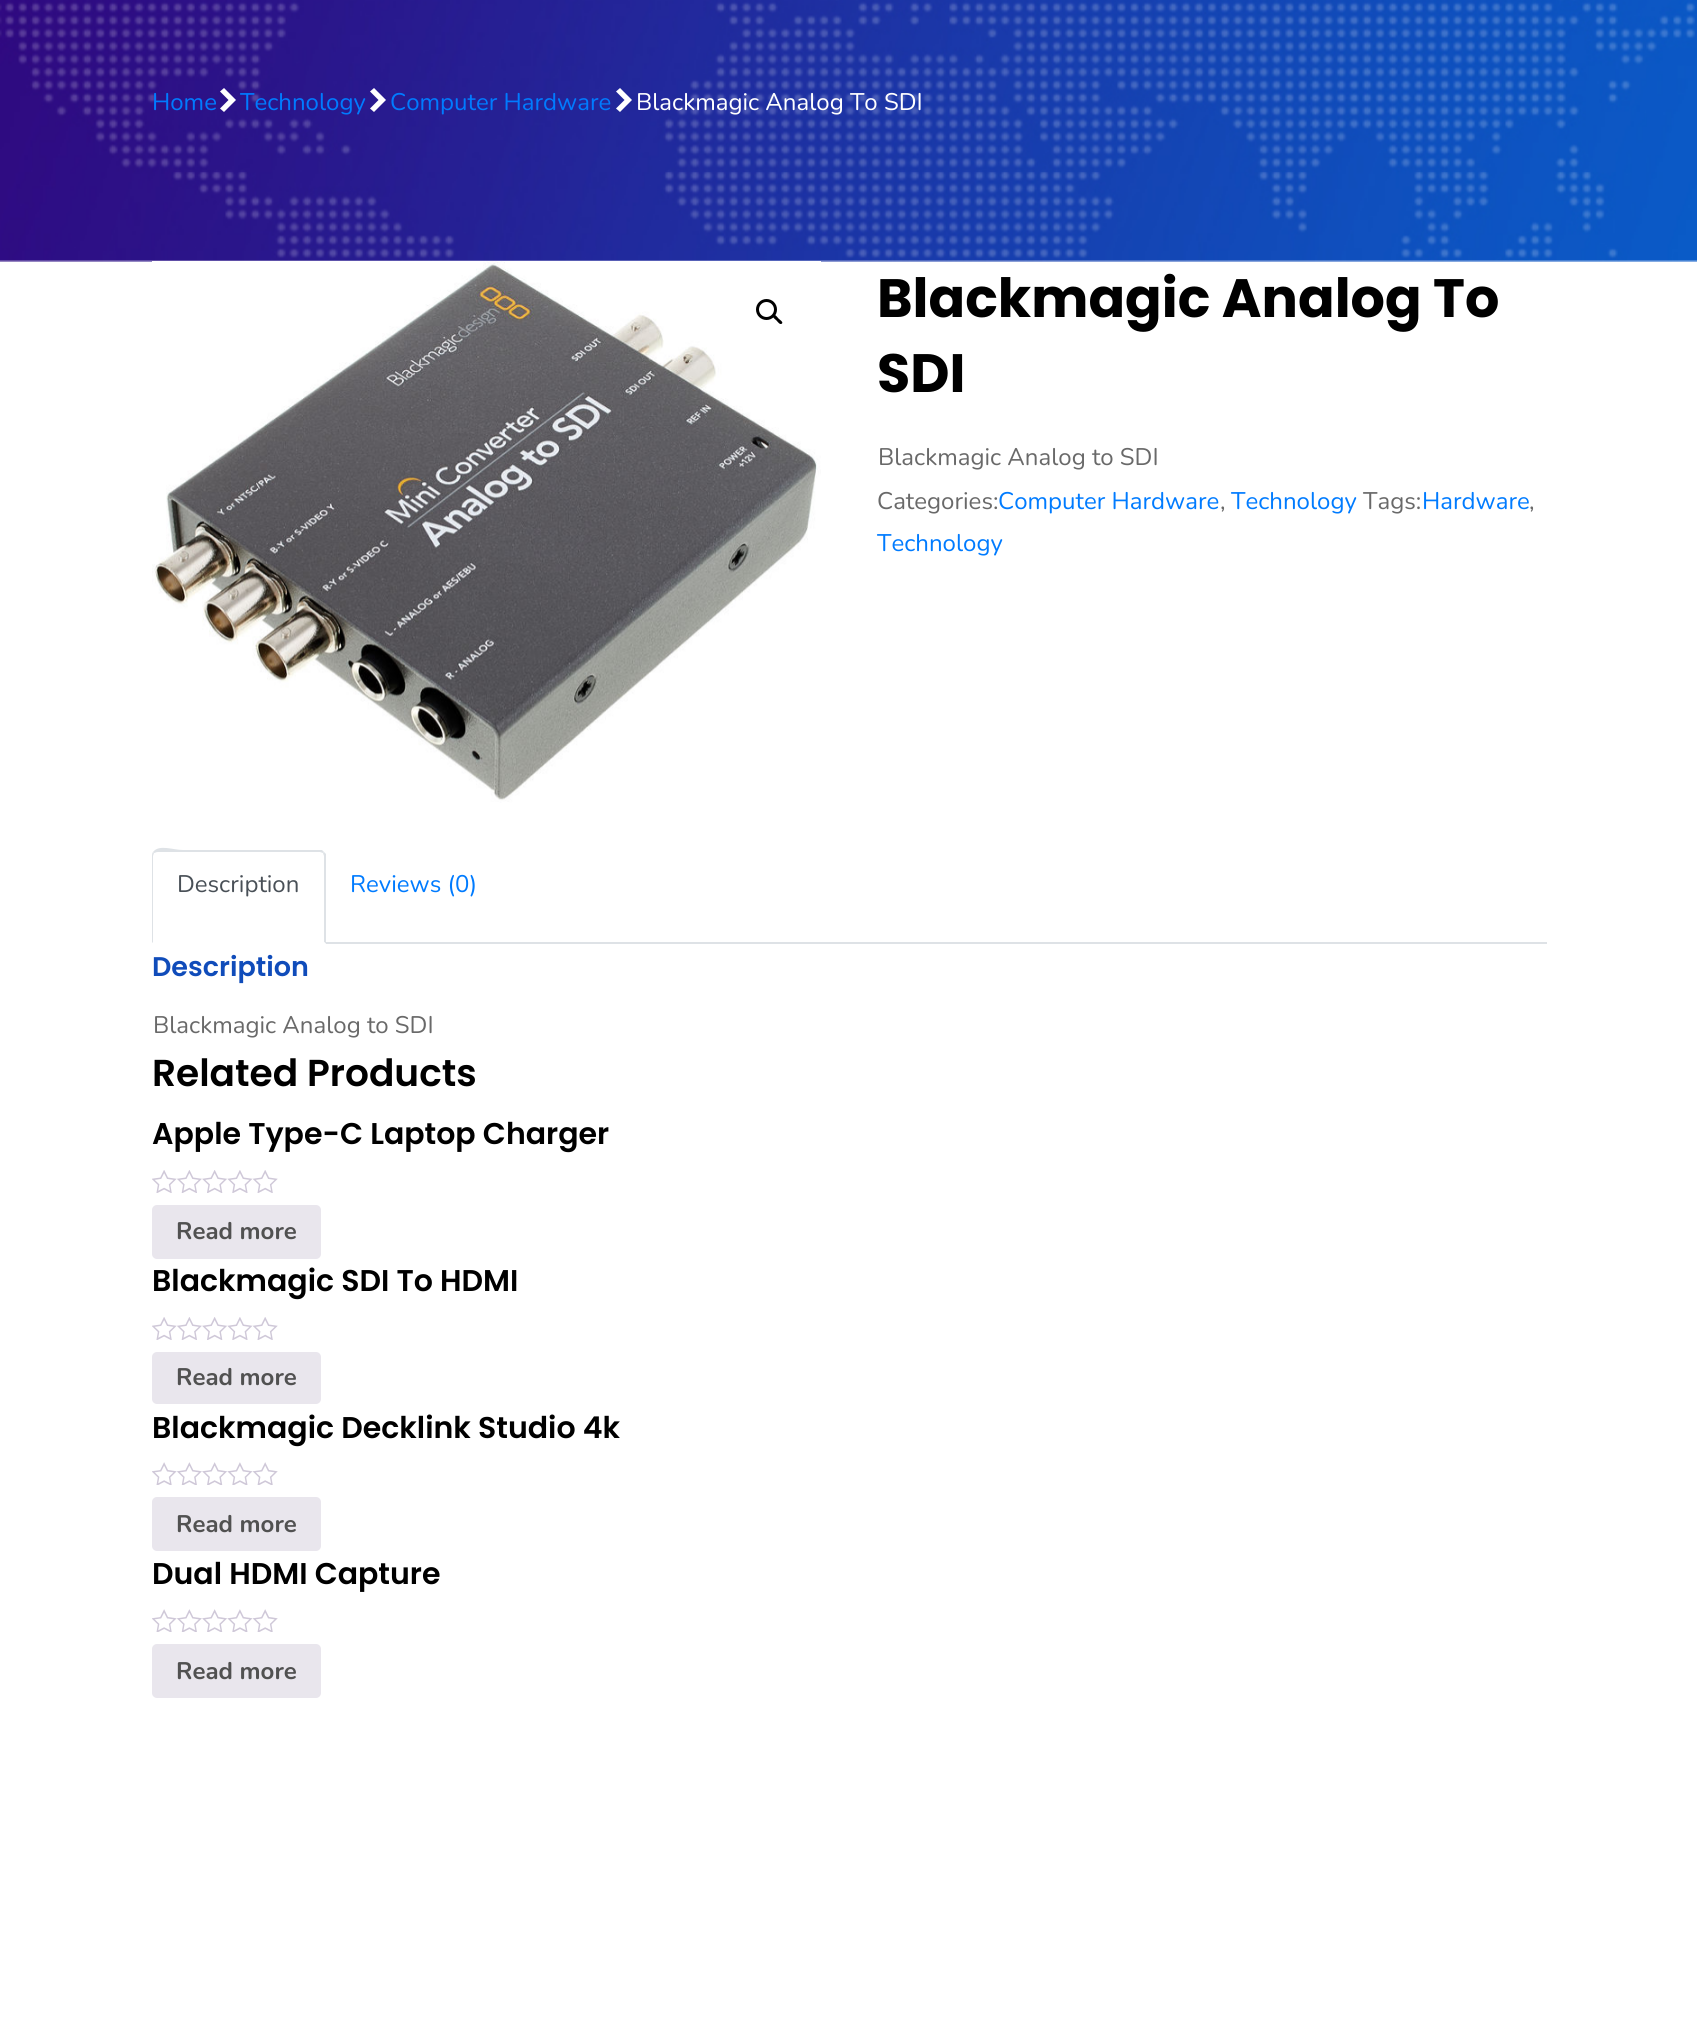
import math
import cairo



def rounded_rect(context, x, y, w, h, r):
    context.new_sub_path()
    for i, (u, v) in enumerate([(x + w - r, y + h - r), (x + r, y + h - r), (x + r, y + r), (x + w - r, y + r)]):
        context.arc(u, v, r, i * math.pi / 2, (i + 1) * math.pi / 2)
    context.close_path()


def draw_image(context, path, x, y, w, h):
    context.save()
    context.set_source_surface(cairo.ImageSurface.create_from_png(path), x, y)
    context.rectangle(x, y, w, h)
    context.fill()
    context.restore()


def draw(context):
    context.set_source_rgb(1, 1, 1)
    context.paint()
    draw_image(context, "images/1.png", 0, 0, 1697, 262)
    context.set_source_rgb(1, 1, 1)
    context.new_path()
    context.move_to(236, 100)
    context.line_to(224, 112)
    context.line_to(220, 108.5)
    context.line_to(228.5, 100)
    context.line_to(220, 91.5)
    context.line_to(224, 88)
    context.close_path()
    context.fill()
    context.new_path()
    context.move_to(386, 100)
    context.line_to(374, 112)
    context.line_to(370, 108.5)
    context.line_to(378.5, 100)
    context.line_to(370, 91.5)
    context.line_to(374, 88)
    context.close_path()
    context.fill()
    context.new_path()
    context.move_to(632, 100)
    context.line_to(620, 112)
    context.line_to(616, 108.5)
    context.line_to(624.5, 100)
    context.line_to(616, 91.5)
    context.line_to(620, 88)
    context.close_path()
    context.fill()
    draw_image(context, "images/2.png", 152, 261, 669, 542)
    context.arc(766.5, 309.5, 9, 0, 2 * math.pi)
    context.set_source_rgb(0, 0, 0)
    context.set_line_width(3)
    context.stroke()
    context.new_path()
    context.move_to(773.5, 315.5)
    context.curve_to(775, 313.5, 777.5, 317.5, 778.5, 318.5)
    context.curve_to(779.5, 319.5, 783.5, 322, 782, 323.5)
    context.curve_to(780, 325.5, 777.5, 321.5, 776.5, 320.5)
    context.curve_to(775.5, 319.5, 771.5, 317, 773.5, 315.5)
    context.close_path()
    context.fill()
    context.set_source_rgb(222 / 255, 226 / 255, 230 / 255)
    context.rectangle(326, 942, 1221, 2)
    context.fill()
    context.new_path()
    context.move_to(158, 852)
    context.curve_to(156, 852, 155, 853, 154, 853)
    context.line_to(153, 852)
    context.curve_to(159, 844, 173, 850, 183, 850)
    context.line_to(322, 850)
    context.line_to(324, 852)
    context.line_to(323, 853)
    context.line_to(320, 852)
    context.close_path()
    context.fill()
    context.new_path()
    context.move_to(324, 852)
    context.line_to(326, 854)
    context.line_to(326, 944)
    context.line_to(324, 942)
    context.line_to(324, 856)
    context.line_to(323, 853)
    context.close_path()
    context.fill()
    context.set_source_rgb(1, 1, 1)
    context.new_path()
    context.move_to(326, 944)
    context.line_to(152, 944)
    context.line_to(153, 942)
    context.line_to(324, 942)
    context.close_path()
    context.fill()
    context.set_source_rgb(222 / 255, 226 / 255, 230 / 255)
    context.new_path()
    context.move_to(152, 943)
    context.line_to(152, 856)
    context.curve_to(152, 855, 152, 853, 153, 852)
    context.line_to(154, 853)
    context.line_to(153, 856)
    context.line_to(153, 942)
    context.close_path()
    context.fill()
    draw_image(context, "images/3.png", 152, 1170, 126, 23)
    context.set_source_rgb(233 / 255, 230 / 255, 237 / 255)
    rounded_rect(context, 152, 1205, 169, 54, 5)
    context.fill()
    draw_image(context, "images/3.png", 152, 1317, 126, 23)
    rounded_rect(context, 152, 1352, 169, 52, 5)
    context.fill()
    draw_image(context, "images/4.png", 152, 1462, 126, 23)
    rounded_rect(context, 152, 1497, 169, 54, 5)
    context.fill()
    draw_image(context, "images/4.png", 152, 1609, 126, 23)
    rounded_rect(context, 152, 1644, 169, 54, 5)
    context.fill()
    context.select_font_face("Nunito")
    context.set_font_size(24)
    context.set_source_rgb(0, 123 / 255, 1)
    context.move_to(152, 110)
    context.show_text("Home")
    context.move_to(240, 110)
    context.show_text("Technology")
    context.move_to(390, 110)
    context.show_text("Computer Hardware")
    context.set_source_rgb(1, 1, 1)
    context.move_to(636, 110)
    context.show_text("Blackmagic Analog To SDI")
    context.select_font_face("Poppins", cairo.FontSlant.NORMAL, cairo.FontWeight.BOLD)
    context.set_font_size(54)
    context.set_source_rgb(0, 0, 0)
    context.move_to(877, 317)
    context.show_text("Blackmagic Analog To")
    context.move_to(877, 392)
    context.show_text("SDI")
    context.select_font_face("Nunito")
    context.set_font_size(24)
    context.set_source_rgb(105 / 255, 105 / 255, 105 / 255)
    context.move_to(878, 465)
    context.show_text("Blackmagic Analog to SDI")
    context.move_to(877, 509)
    context.show_text("Categories:")
    context.set_source_rgb(0, 123 / 255, 1)
    context.move_to(998, 509)
    context.show_text("Computer Hardware")
    context.set_source_rgb(105 / 255, 105 / 255, 105 / 255)
    context.move_to(1220, 509)
    context.show_text(",")
    context.set_source_rgb(0, 123 / 255, 1)
    context.move_to(1231, 509)
    context.show_text("Technology")
    context.set_source_rgb(105 / 255, 105 / 255, 105 / 255)
    context.move_to(1363, 509)
    context.show_text("Tags:")
    context.set_source_rgb(0, 123 / 255, 1)
    context.move_to(1422, 509)
    context.show_text("Hardware")
    context.set_source_rgb(105 / 255, 105 / 255, 105 / 255)
    context.move_to(1529, 509)
    context.show_text(",")
    context.set_source_rgb(0, 123 / 255, 1)
    context.move_to(877, 551)
    context.show_text("Technology")
    context.set_source_rgb(73 / 255, 80 / 255, 87 / 255)
    context.move_to(177, 892)
    context.show_text("Description")
    context.set_source_rgb(0, 123 / 255, 1)
    context.move_to(350, 892)
    context.show_text("Reviews (0)")
    context.select_font_face("Poppins SemiBold")
    context.set_font_size(27)
    context.set_source_rgb(16 / 255, 76 / 255, 186 / 255)
    context.move_to(152, 976)
    context.show_text("Description")
    context.select_font_face("Nunito")
    context.set_font_size(24)
    context.set_source_rgb(105 / 255, 105 / 255, 105 / 255)
    context.move_to(153, 1033)
    context.show_text("Blackmagic Analog to SDI")
    context.select_font_face("Poppins SemiBold")
    context.set_font_size(37.5)
    context.set_source_rgb(0, 0, 0)
    context.move_to(152, 1086)
    context.show_text("Related Products")
    context.set_font_size(30)
    context.move_to(152, 1144)
    context.show_text("Apple Type-C Laptop Charger")
    context.select_font_face("Nunito", cairo.FontSlant.NORMAL, cairo.FontWeight.BOLD)
    context.set_font_size(24)
    context.set_source_rgb(81 / 255, 81 / 255, 81 / 255)
    context.move_to(176, 1239)
    context.show_text("Read more")
    context.select_font_face("Poppins SemiBold")
    context.set_font_size(30)
    context.set_source_rgb(0, 0, 0)
    context.move_to(152, 1291)
    context.show_text("Blackmagic SDI To HDMI")
    context.select_font_face("Nunito", cairo.FontSlant.NORMAL, cairo.FontWeight.BOLD)
    context.set_font_size(24)
    context.set_source_rgb(81 / 255, 81 / 255, 81 / 255)
    context.move_to(176, 1385)
    context.show_text("Read more")
    context.select_font_face("Poppins SemiBold")
    context.set_font_size(30)
    context.set_source_rgb(0, 0, 0)
    context.move_to(152, 1438)
    context.show_text("Blackmagic Decklink Studio 4k")
    context.select_font_face("Nunito", cairo.FontSlant.NORMAL, cairo.FontWeight.BOLD)
    context.set_font_size(24)
    context.set_source_rgb(81 / 255, 81 / 255, 81 / 255)
    context.move_to(176, 1532)
    context.show_text("Read more")
    context.select_font_face("Poppins SemiBold")
    context.set_font_size(30)
    context.set_source_rgb(0, 0, 0)
    context.move_to(152, 1584)
    context.show_text("Dual HDMI Capture")
    context.select_font_face("Nunito", cairo.FontSlant.NORMAL, cairo.FontWeight.BOLD)
    context.set_font_size(24)
    context.set_source_rgb(81 / 255, 81 / 255, 81 / 255)
    context.move_to(176, 1679)
    context.show_text("Read more")


surface = cairo.ImageSurface(cairo.Format.RGB24, 1697, 2033)
context = cairo.Context(surface)
options = cairo.FontOptions()
options.set_hint_metrics(cairo.HintMetrics.OFF)
options.set_hint_style(cairo.HintStyle.NONE)
context.set_font_options(options)
context.set_miter_limit(4)
draw(context)
surface.write_to_png("out.png")
